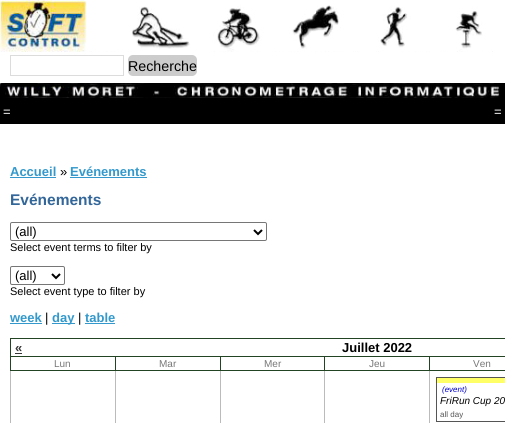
import math
import cairo



def rounded_rect(context, x, y, w, h, r):
    context.new_sub_path()
    for i, (u, v) in enumerate([(x + w - r, y + h - r), (x + r, y + h - r), (x + r, y + r), (x + w - r, y + r)]):
        context.arc(u, v, r, i * math.pi / 2, (i + 1) * math.pi / 2)
    context.close_path()


def draw_image(context, path, x, y, w, h):
    context.save()
    context.set_source_surface(cairo.ImageSurface.create_from_png(path), x, y)
    context.rectangle(x, y, w, h)
    context.fill()
    context.restore()


def draw(context):
    context.set_source_rgb(1, 1, 1)
    context.paint()
    draw_image(context, "images/1.png", 0, 0, 493, 52)
    context.rectangle(10.5, 55.5, 113, 20)
    context.set_source_rgb(220 / 255, 220 / 255, 220 / 255)
    context.set_line_width(1)
    context.stroke()
    context.set_source_rgb(204 / 255, 204 / 255, 204 / 255)
    rounded_rect(context, 128, 55, 69, 21, 5)
    context.fill()
    context.set_source_rgb(0, 0, 0)
    context.rectangle(0, 83, 505, 18)
    context.fill()
    draw_image(context, "images/2.png", 0, 83, 500, 15)
    context.rectangle(0, 101, 505, 23)
    context.fill()
    context.set_source_rgb(51 / 255, 153 / 255, 204 / 255)
    context.rectangle(10, 177, 46, 1)
    context.fill()
    context.rectangle(70, 177, 77, 1)
    context.fill()
    rounded_rect(context, 10.5, 222.5, 256, 18, 1.5)
    context.set_source_rgb(118 / 255, 118 / 255, 118 / 255)
    context.stroke()
    context.new_path()
    context.move_to(254, 230)
    context.line_to(258, 234)
    context.line_to(262, 230)
    context.set_source_rgb(0, 0, 0)
    context.set_line_width(2)
    context.stroke()
    rounded_rect(context, 10.5, 266.5, 54, 18, 1.5)
    context.set_source_rgb(118 / 255, 118 / 255, 118 / 255)
    context.set_line_width(1)
    context.stroke()
    context.new_path()
    context.move_to(52, 274)
    context.line_to(56, 278)
    context.line_to(60, 274)
    context.set_source_rgb(0, 0, 0)
    context.set_line_width(2)
    context.stroke()
    context.set_source_rgb(51 / 255, 153 / 255, 204 / 255)
    context.rectangle(10, 323, 32, 1)
    context.fill()
    context.rectangle(52, 323, 23, 1)
    context.fill()
    context.rectangle(85, 323, 30, 1)
    context.fill()
    context.set_source_rgb(34 / 255, 68 / 255, 34 / 255)
    context.rectangle(10, 338, 495, 1)
    context.fill()
    context.rectangle(10, 338, 1, 32)
    context.fill()
    context.set_source_rgb(54 / 255, 54 / 255, 54 / 255)
    context.rectangle(15, 353, 7, 1)
    context.fill()
    context.set_source_rgb(187 / 255, 187 / 255, 187 / 255)
    context.rectangle(429, 370, 1, 53)
    context.fill()
    context.set_source_rgb(34 / 255, 68 / 255, 34 / 255)
    context.rectangle(429, 370, 76, 1)
    context.fill()
    context.rectangle(429, 356, 1, 15)
    context.fill()
    context.set_source_rgb(187 / 255, 187 / 255, 187 / 255)
    context.rectangle(324, 370, 1, 53)
    context.fill()
    context.set_source_rgb(34 / 255, 68 / 255, 34 / 255)
    context.rectangle(324, 370, 106, 1)
    context.fill()
    context.rectangle(324, 356, 1, 15)
    context.fill()
    context.set_source_rgb(187 / 255, 187 / 255, 187 / 255)
    context.rectangle(220, 370, 1, 53)
    context.fill()
    context.set_source_rgb(34 / 255, 68 / 255, 34 / 255)
    context.rectangle(220, 370, 105, 1)
    context.fill()
    context.rectangle(220, 356, 1, 15)
    context.fill()
    context.set_source_rgb(187 / 255, 187 / 255, 187 / 255)
    context.rectangle(115, 370, 1, 53)
    context.fill()
    context.set_source_rgb(34 / 255, 68 / 255, 34 / 255)
    context.rectangle(115, 370, 106, 1)
    context.fill()
    context.rectangle(115, 356, 1, 15)
    context.fill()
    context.rectangle(10, 356, 495, 1)
    context.fill()
    context.set_source_rgb(187 / 255, 187 / 255, 187 / 255)
    context.rectangle(10, 370, 1, 53)
    context.fill()
    context.set_source_rgb(34 / 255, 68 / 255, 34 / 255)
    context.rectangle(10, 370, 106, 1)
    context.fill()
    context.rectangle(436.5, 377.5, 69, 44)
    context.set_source_rgb(85 / 255, 85 / 255, 85 / 255)
    context.set_line_width(1)
    context.stroke()
    context.set_source_rgb(1, 1, 102 / 255)
    context.rectangle(437, 378, 68, 5)
    context.fill()
    context.select_font_face("Liberation Sans")
    context.set_font_size(14.25)
    context.set_source_rgb(0, 0, 0)
    context.move_to(128, 71)
    context.show_text("Recherche")
    context.set_font_size(13)
    context.set_source_rgb(1, 1, 1)
    context.move_to(3, 116)
    context.show_text("=")
    context.move_to(494, 116)
    context.show_text("=")
    context.select_font_face("Liberation Sans", cairo.FontSlant.NORMAL, cairo.FontWeight.BOLD)
    context.set_source_rgb(51 / 255, 153 / 255, 204 / 255)
    context.move_to(10, 176)
    context.show_text("Accueil")
    context.select_font_face("Liberation Sans")
    context.set_source_rgb(0, 0, 0)
    context.move_to(60, 176)
    context.show_text("»")
    context.select_font_face("Liberation Sans", cairo.FontSlant.NORMAL, cairo.FontWeight.BOLD)
    context.set_source_rgb(51 / 255, 153 / 255, 204 / 255)
    context.move_to(70, 176)
    context.show_text("Evénements")
    context.set_font_size(15.5)
    context.set_source_rgb(51 / 255, 102 / 255, 153 / 255)
    context.move_to(10, 205)
    context.show_text("Evénements")
    context.select_font_face("Liberation Sans")
    context.set_font_size(13)
    context.set_source_rgb(0, 0, 0)
    context.move_to(15, 236)
    context.show_text("(all)")
    context.set_font_size(11)
    context.move_to(10, 251)
    context.show_text("Select event terms to filter by")
    context.set_font_size(13)
    context.move_to(15, 280)
    context.show_text("(all)")
    context.set_font_size(11)
    context.move_to(10, 295)
    context.show_text("Select event type to filter by")
    context.select_font_face("Liberation Sans", cairo.FontSlant.NORMAL, cairo.FontWeight.BOLD)
    context.set_font_size(13)
    context.set_source_rgb(51 / 255, 153 / 255, 204 / 255)
    context.move_to(10, 322)
    context.show_text("week")
    context.select_font_face("Liberation Sans")
    context.set_source_rgb(0, 0, 0)
    context.move_to(45, 322)
    context.show_text("|")
    context.select_font_face("Liberation Sans", cairo.FontSlant.NORMAL, cairo.FontWeight.BOLD)
    context.set_source_rgb(51 / 255, 153 / 255, 204 / 255)
    context.move_to(52, 322)
    context.show_text("day")
    context.select_font_face("Liberation Sans")
    context.set_source_rgb(0, 0, 0)
    context.move_to(78, 322)
    context.show_text("|")
    context.select_font_face("Liberation Sans", cairo.FontSlant.NORMAL, cairo.FontWeight.BOLD)
    context.set_source_rgb(51 / 255, 153 / 255, 204 / 255)
    context.move_to(85, 322)
    context.show_text("table")
    context.set_source_rgb(54 / 255, 54 / 255, 54 / 255)
    context.move_to(15, 352)
    context.show_text("«")
    context.set_source_rgb(0, 0, 0)
    context.move_to(342, 352)
    context.show_text("Juillet 2022")
    context.select_font_face("Liberation Sans")
    context.set_font_size(10)
    context.set_source_rgb(119 / 255, 119 / 255, 119 / 255)
    context.move_to(54, 367)
    context.show_text("Lun")
    context.move_to(159, 367)
    context.show_text("Mar")
    context.move_to(264, 367)
    context.show_text("Mer")
    context.move_to(369, 367)
    context.show_text("Jeu")
    context.move_to(473, 367)
    context.show_text("Ven")
    context.select_font_face("Liberation Sans", cairo.FontSlant.ITALIC)
    context.set_font_size(8)
    context.set_source_rgb(0, 0, 204 / 255)
    context.move_to(442, 392)
    context.show_text("(event)")
    context.set_font_size(10)
    context.set_source_rgb(0, 0, 0)
    context.move_to(440, 404)
    context.show_text("FriRun Cup 20")
    context.select_font_face("Liberation Sans")
    context.set_font_size(8)
    context.set_source_rgb(85 / 255, 85 / 255, 85 / 255)
    context.move_to(440, 417)
    context.show_text("all day")


surface = cairo.ImageSurface(cairo.Format.RGB24, 505, 423)
context = cairo.Context(surface)
options = cairo.FontOptions()
options.set_hint_metrics(cairo.HintMetrics.OFF)
options.set_hint_style(cairo.HintStyle.NONE)
context.set_font_options(options)
context.set_miter_limit(4)
draw(context)
surface.write_to_png("out.png")
